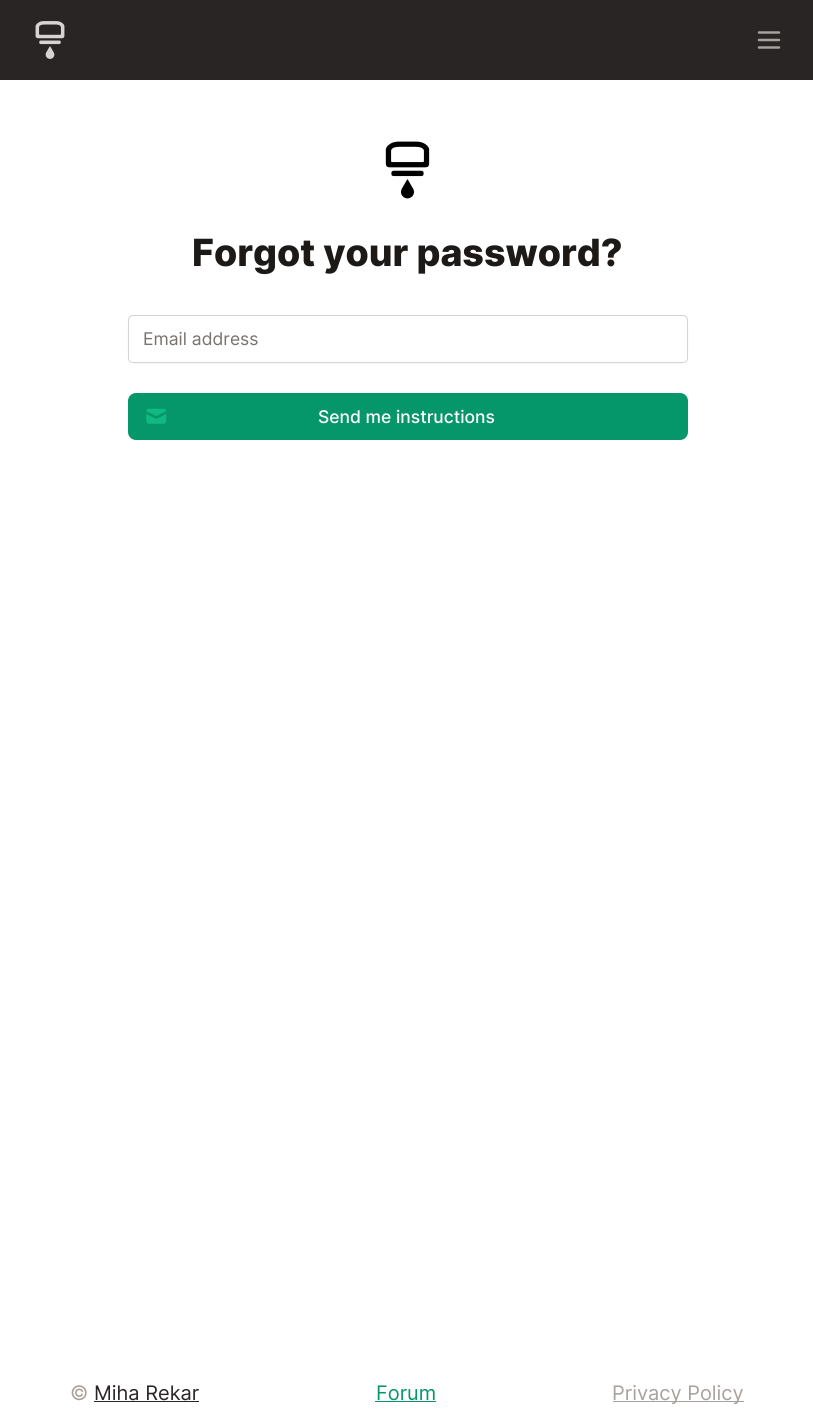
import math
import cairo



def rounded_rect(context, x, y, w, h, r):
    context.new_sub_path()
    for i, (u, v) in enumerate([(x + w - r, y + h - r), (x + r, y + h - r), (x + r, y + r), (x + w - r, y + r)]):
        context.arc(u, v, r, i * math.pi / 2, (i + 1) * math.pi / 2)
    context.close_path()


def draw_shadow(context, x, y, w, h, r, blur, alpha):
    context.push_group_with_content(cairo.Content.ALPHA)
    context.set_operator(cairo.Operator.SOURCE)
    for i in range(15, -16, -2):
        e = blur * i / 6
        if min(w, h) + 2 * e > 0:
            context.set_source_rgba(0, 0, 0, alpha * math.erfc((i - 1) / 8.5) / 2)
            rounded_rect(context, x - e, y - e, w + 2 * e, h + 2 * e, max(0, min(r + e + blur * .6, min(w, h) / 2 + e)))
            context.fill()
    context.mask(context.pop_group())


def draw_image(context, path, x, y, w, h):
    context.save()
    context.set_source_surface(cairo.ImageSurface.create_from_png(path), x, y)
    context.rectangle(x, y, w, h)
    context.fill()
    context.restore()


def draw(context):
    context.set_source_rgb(1, 1, 1)
    context.paint()
    context.set_source_rgb(41 / 255, 37 / 255, 36 / 255)
    context.rectangle(0, 0, 813, 80)
    context.fill()
    draw_image(context, "images/1.png", 35, 21, 30, 38)
    context.new_path()
    context.move_to(759, 32.5)
    context.line_to(779, 32.5)
    context.move_to(759, 40)
    context.line_to(779, 40)
    context.move_to(759, 47.5)
    context.line_to(779, 47.5)
    context.set_source_rgb(168 / 255, 162 / 255, 158 / 255)
    context.set_line_width(2.5)
    context.set_line_cap(cairo.LineCap.ROUND)
    context.set_line_join(cairo.LineJoin.ROUND)
    context.stroke()
    draw_image(context, "images/2.png", 385, 141, 45, 58)
    context.set_source_rgb(0, 0, 0)
    draw_shadow(context, 128, 316, 560, 48, 8, 1, 0.05)
    context.set_source_rgb(1, 1, 1)
    rounded_rect(context, 128.5, 315.5, 559, 47, 4.5)
    context.fill_preserve()
    context.set_source_rgb(214 / 255, 211 / 255, 209 / 255)
    context.set_line_width(1)
    context.set_line_cap(cairo.LineCap.BUTT)
    context.set_line_join(cairo.LineJoin.MITER)
    context.stroke()
    context.set_source_rgb(5 / 255, 150 / 255, 105 / 255)
    rounded_rect(context, 128, 393, 560, 47, 8)
    context.fill()
    draw_image(context, "images/3.png", 146, 408, 21, 16)
    context.set_source_rgb(41 / 255, 37 / 255, 36 / 255)
    context.rectangle(94, 1401, 105, 1)
    context.fill()
    context.set_source_rgb(5 / 255, 150 / 255, 105 / 255)
    context.rectangle(375, 1401, 61, 1)
    context.fill()
    context.set_source_rgb(168 / 255, 162 / 255, 158 / 255)
    context.rectangle(613, 1401, 131, 1)
    context.fill()
    context.select_font_face("Inter ExtraBold")
    context.set_font_size(37.5)
    context.set_source_rgb(28 / 255, 25 / 255, 23 / 255)
    context.move_to(192, 266)
    context.show_text("Forgot your password?")
    context.select_font_face("Inter")
    context.set_font_size(17.5)
    context.set_source_rgb(120 / 255, 113 / 255, 108 / 255)
    context.move_to(143, 345)
    context.show_text("Email address")
    context.select_font_face("Inter Medium")
    context.set_source_rgb(1, 1, 1)
    context.move_to(318, 423)
    context.show_text("Send me instructions")
    context.select_font_face("Inter")
    context.set_font_size(20)
    context.set_source_rgb(168 / 255, 162 / 255, 158 / 255)
    context.move_to(70, 1400)
    context.show_text("©")
    context.set_source_rgb(41 / 255, 37 / 255, 36 / 255)
    context.move_to(94, 1400)
    context.show_text("Miha Rekar")
    context.set_source_rgb(5 / 255, 150 / 255, 105 / 255)
    context.move_to(376, 1400)
    context.show_text("Forum")
    context.set_source_rgb(168 / 255, 162 / 255, 158 / 255)
    context.move_to(612, 1400)
    context.show_text("Privacy Policy")


surface = cairo.ImageSurface(cairo.Format.RGB24, 813, 1427)
context = cairo.Context(surface)
options = cairo.FontOptions()
options.set_hint_metrics(cairo.HintMetrics.OFF)
options.set_hint_style(cairo.HintStyle.NONE)
context.set_font_options(options)
context.set_miter_limit(4)
draw(context)
surface.write_to_png("out.png")
